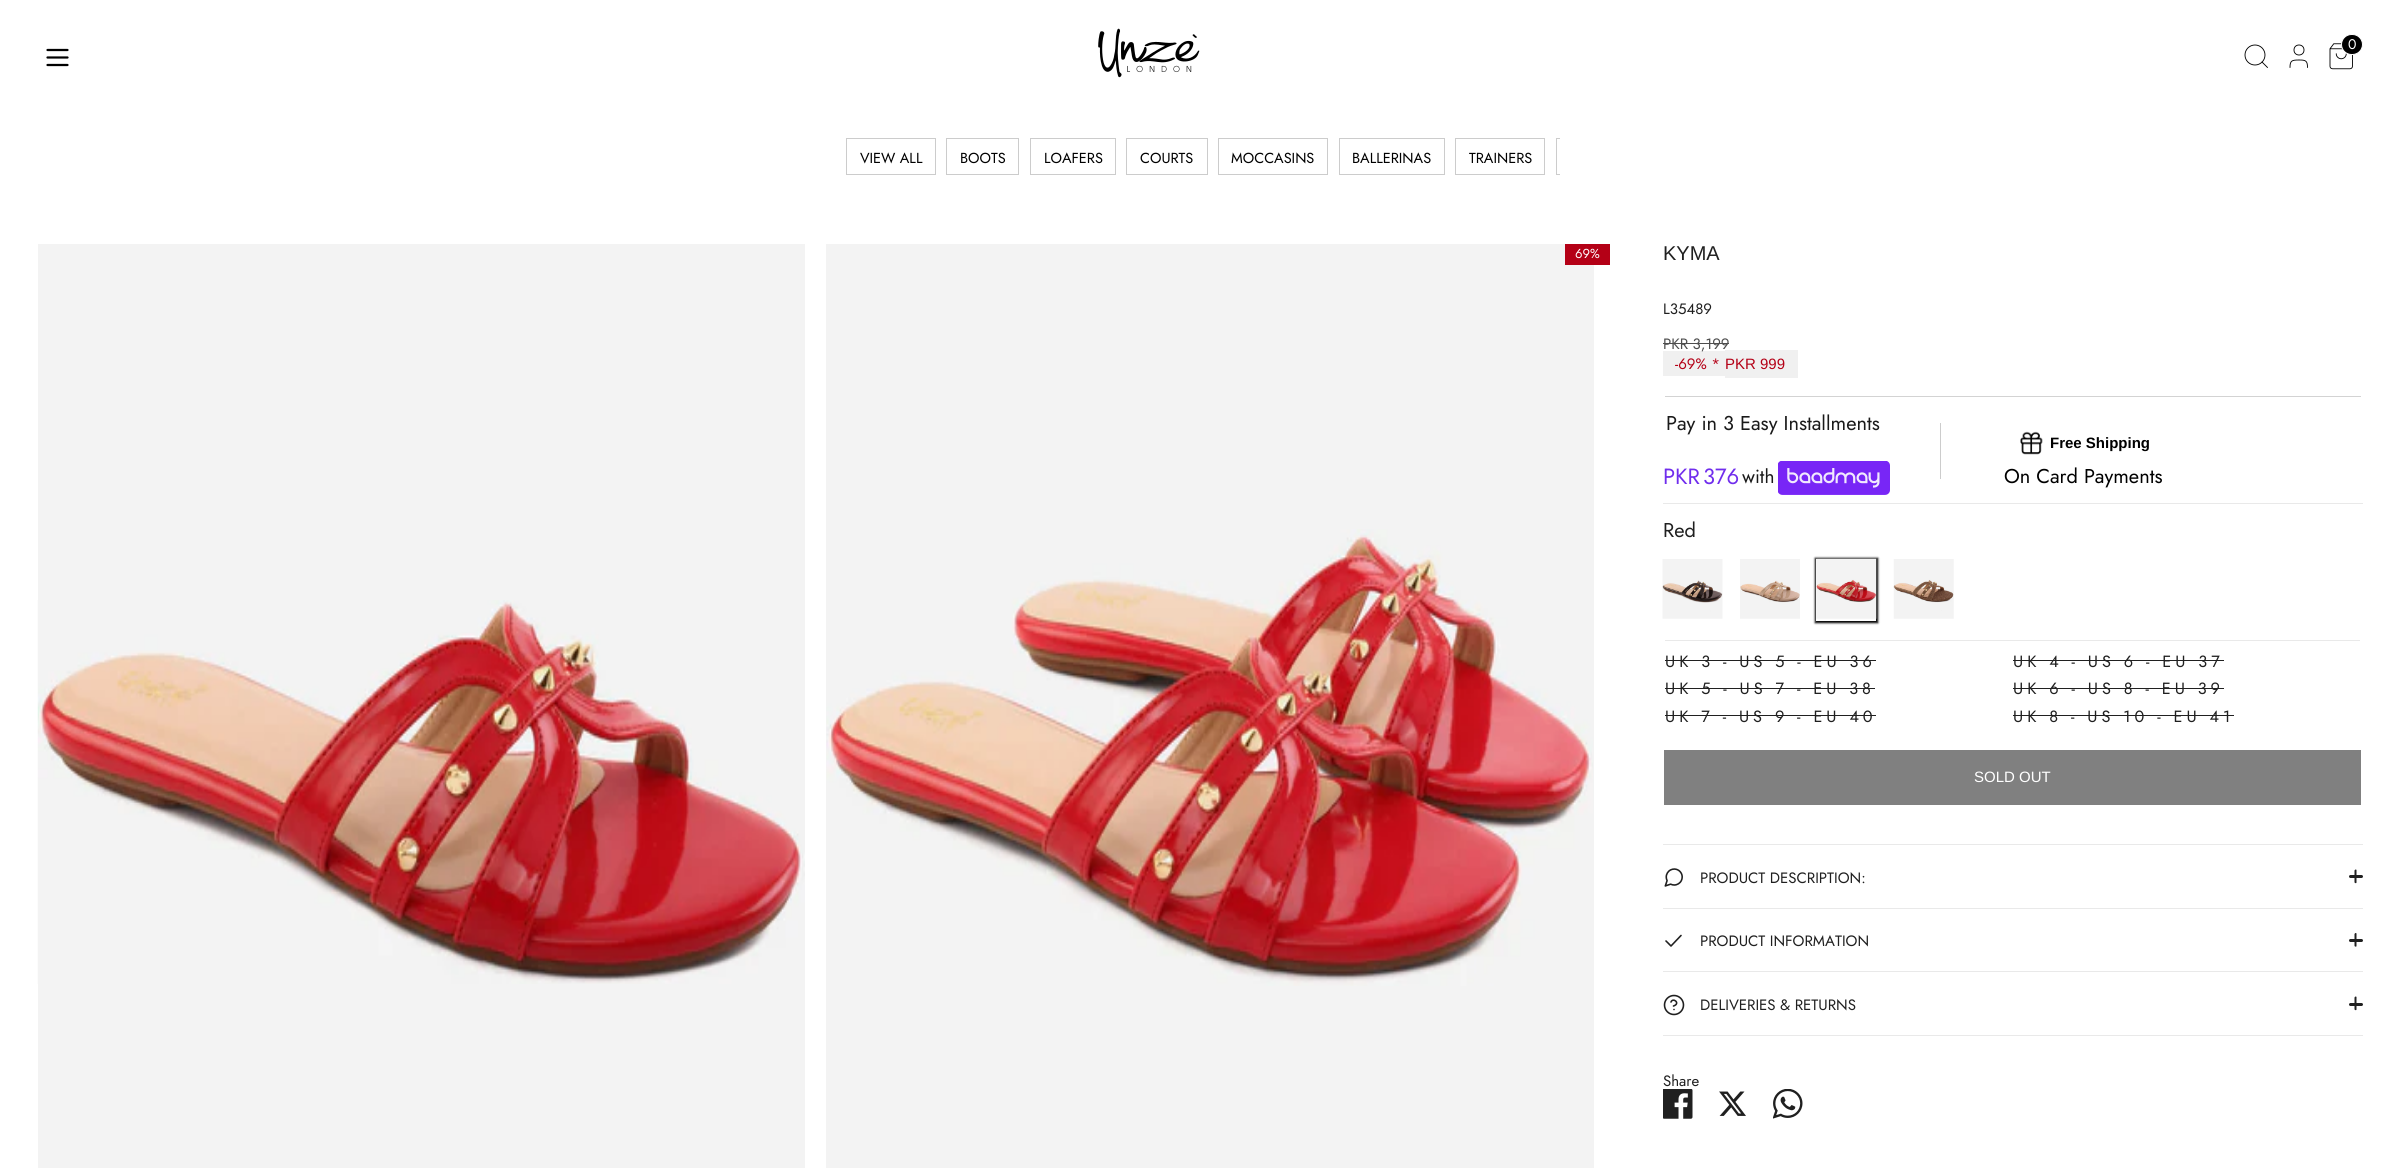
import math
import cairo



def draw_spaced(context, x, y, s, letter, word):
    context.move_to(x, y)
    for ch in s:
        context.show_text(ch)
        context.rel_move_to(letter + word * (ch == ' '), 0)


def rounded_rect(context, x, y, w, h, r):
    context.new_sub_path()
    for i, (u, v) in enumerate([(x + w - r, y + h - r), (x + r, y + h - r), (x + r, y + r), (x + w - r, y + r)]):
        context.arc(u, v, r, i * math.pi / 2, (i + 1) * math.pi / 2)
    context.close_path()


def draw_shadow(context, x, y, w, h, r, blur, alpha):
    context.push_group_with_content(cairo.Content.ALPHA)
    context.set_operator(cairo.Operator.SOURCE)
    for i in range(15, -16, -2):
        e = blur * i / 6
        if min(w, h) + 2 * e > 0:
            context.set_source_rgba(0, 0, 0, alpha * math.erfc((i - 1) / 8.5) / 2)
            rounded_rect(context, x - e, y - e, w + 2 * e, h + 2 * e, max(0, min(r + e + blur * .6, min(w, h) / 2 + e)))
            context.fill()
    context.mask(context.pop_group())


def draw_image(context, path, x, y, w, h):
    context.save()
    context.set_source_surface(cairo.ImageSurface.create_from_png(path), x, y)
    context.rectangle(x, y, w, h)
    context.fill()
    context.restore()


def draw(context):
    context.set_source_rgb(1, 1, 1)
    context.paint()
    draw_image(context, "images/1.png", 1098, 28, 102, 50)
    context.arc(2255, 55, 10, 0, 2 * math.pi)
    context.set_source_rgb(0, 0, 0)
    context.set_line_width(0.9)
    context.stroke()
    context.new_path()
    context.move_to(2267.5, 67.5)
    context.line_to(2262, 62)
    context.move_to(2307.5, 67.5)
    context.curve_to(2307.5, 60.5, 2305.5, 60, 2299, 60)
    context.curve_to(2292, 60, 2290, 60.5, 2290, 67.5)
    context.set_line_cap(cairo.LineCap.ROUND)
    context.set_line_join(cairo.LineJoin.ROUND)
    context.stroke()
    draw_image(context, "images/2.png", 2329, 43, 24, 27)
    rounded_rect(context, 2341.5, 34.5, 21, 20, 10)
    context.fill_preserve()
    context.set_source_rgb(1, 1, 1)
    context.set_line_width(1)
    context.set_line_cap(cairo.LineCap.BUTT)
    context.set_line_join(cairo.LineJoin.MITER)
    context.stroke()
    context.arc(2299, 50, 5, 0, 2 * math.pi)
    context.set_source_rgb(0, 0, 0)
    context.set_line_width(0.9)
    context.stroke()
    context.new_path()
    context.move_to(47.5, 57.5)
    context.line_to(67.5, 57.5)
    context.move_to(47.5, 50)
    context.line_to(67.5, 50)
    context.move_to(47.5, 65)
    context.line_to(67.5, 65)
    context.set_line_width(2.2)
    context.set_line_cap(cairo.LineCap.ROUND)
    context.set_line_join(cairo.LineJoin.ROUND)
    context.stroke()
    context.rectangle(846.5, 138.5, 89, 36)
    context.set_source_rgb(204 / 255, 204 / 255, 204 / 255)
    context.set_line_width(1)
    context.set_line_cap(cairo.LineCap.BUTT)
    context.set_line_join(cairo.LineJoin.MITER)
    context.stroke()
    context.rectangle(946.5, 138.5, 72, 36)
    context.stroke()
    context.rectangle(1030.5, 138.5, 85, 36)
    context.stroke()
    context.rectangle(1126.5, 138.5, 81, 36)
    context.stroke()
    context.rectangle(1218.5, 138.5, 109, 36)
    context.stroke()
    context.rectangle(1339.5, 138.5, 105, 36)
    context.stroke()
    context.rectangle(1455.5, 138.5, 89, 36)
    context.stroke()
    context.save()
    context.rectangle(840, 138, 720, 68)
    context.clip()
    context.rectangle(1556.5, 138.5, 93, 36)
    context.stroke()
    context.restore()
    context.set_source_rgb(243 / 255, 243 / 255, 243 / 255)
    context.rectangle(38, 244, 767, 924)
    context.fill()
    draw_image(context, "images/3.png", 37, 600, 768, 384)
    context.rectangle(826, 244, 768, 924)
    context.fill()
    draw_image(context, "images/4.png", 826, 529, 767, 457)
    context.set_source_rgb(180 / 255, 0, 22 / 255)
    context.rectangle(1565, 244, 45, 21)
    context.fill()
    context.set_source_rgb(77 / 255, 77 / 255, 77 / 255)
    context.rectangle(1663, 343, 66, 1)
    context.fill()
    context.set_source_rgb(240 / 255, 240 / 255, 240 / 255)
    context.rectangle(1663, 351, 62, 25)
    context.fill()
    context.rectangle(1725, 350, 73, 28)
    context.fill()
    context.set_source_rgb(211 / 255, 211 / 255, 211 / 255)
    context.rectangle(1665, 396, 696, 1)
    context.fill()
    draw_image(context, "images/5.png", 1778, 461, 112, 34)
    context.set_source_rgb(204 / 255, 204 / 255, 204 / 255)
    context.rectangle(1940, 423, 1, 56)
    context.fill()
    draw_image(context, "images/6.png", 2020, 431, 23, 24)
    context.set_source_rgb(233 / 255, 233 / 255, 233 / 255)
    context.rectangle(1663, 503, 700, 1)
    context.fill()
    draw_image(context, "images/7.png", 1662, 559, 61, 60)
    draw_image(context, "images/8.png", 1740, 559, 60, 60)
    context.save()
    context.set_fill_rule(cairo.FillRule.EVEN_ODD)
    context.new_path()
    context.move_to(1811, 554)
    context.line_to(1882, 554)
    context.line_to(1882, 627)
    context.line_to(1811, 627)
    context.close_path()
    context.move_to(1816, 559)
    context.line_to(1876, 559)
    context.line_to(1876, 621)
    context.line_to(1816, 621)
    context.close_path()
    context.clip()
    context.set_source_rgb(0, 0, 0)
    draw_shadow(context, 1815, 558, 63, 65, 0, 1, 1)
    context.restore()
    draw_image(context, "images/9.png", 1816, 558, 61, 61)
    draw_image(context, "images/10.png", 1893, 559, 61, 60)
    context.rectangle(1665, 640, 695, 1)
    context.fill()
    context.set_source_rgb(32 / 255, 32 / 255, 32 / 255)
    context.rectangle(1665, 660, 211, 1)
    context.fill()
    context.rectangle(2013, 660, 211, 1)
    context.fill()
    context.rectangle(1665, 688, 210, 1)
    context.fill()
    context.rectangle(2013, 688, 211, 1)
    context.fill()
    context.rectangle(1665, 715, 211, 1)
    context.fill()
    context.rectangle(2013, 715, 221, 1)
    context.fill()
    context.set_source_rgb(128 / 255, 128 / 255, 128 / 255)
    context.rectangle(1664, 750, 697, 55)
    context.fill()
    context.set_source_rgb(233 / 255, 233 / 255, 233 / 255)
    context.rectangle(1663, 844, 700, 1)
    context.fill()
    context.rectangle(1663, 908, 700, 1)
    context.fill()
    draw_image(context, "images/11.png", 1664, 868, 19, 19)
    context.set_source_rgb(32 / 255, 32 / 255, 32 / 255)
    context.new_path()
    context.move_to(2354.5, 882)
    context.line_to(2354.5, 870.5)
    context.curve_to(2355, 869.5, 2356, 869, 2356.5, 870)
    context.line_to(2356.5, 882.5)
    context.curve_to(2356.5, 883.5, 2354.5, 883.5, 2354.5, 882)
    context.close_path()
    context.fill()
    rounded_rect(context, 2349, 875, 14, 3, 1.5)
    context.fill()
    context.set_source_rgb(233 / 255, 233 / 255, 233 / 255)
    context.rectangle(1663, 971, 700, 1)
    context.fill()
    context.new_path()
    context.move_to(1681, 935.5)
    context.line_to(1671, 946)
    context.line_to(1666, 941)
    context.set_source_rgb(32 / 255, 32 / 255, 32 / 255)
    context.set_line_width(1.6)
    context.set_line_cap(cairo.LineCap.ROUND)
    context.set_line_join(cairo.LineJoin.ROUND)
    context.stroke()
    context.new_path()
    context.move_to(2354.5, 945.5)
    context.line_to(2354.5, 934)
    context.curve_to(2355, 933, 2356, 932.5, 2356.5, 933.5)
    context.line_to(2356.5, 946)
    context.curve_to(2356.5, 947, 2354.5, 947, 2354.5, 945.5)
    context.close_path()
    context.fill()
    rounded_rect(context, 2349, 939, 14, 3, 1.5)
    context.fill()
    context.set_source_rgb(233 / 255, 233 / 255, 233 / 255)
    context.rectangle(1663, 1035, 700, 1)
    context.fill()
    context.arc(1674, 1005, 9.5, 0, 2 * math.pi)
    context.set_source_rgb(32 / 255, 32 / 255, 32 / 255)
    context.set_line_cap(cairo.LineCap.BUTT)
    context.set_line_join(cairo.LineJoin.MITER)
    context.stroke()
    context.new_path()
    context.move_to(1671, 1002)
    context.curve_to(1673, 997, 1681, 1003.5, 1673.5, 1006)
    context.move_to(1674, 1009.5)
    context.line_to(1674, 1009.5)
    context.set_line_cap(cairo.LineCap.ROUND)
    context.set_line_join(cairo.LineJoin.ROUND)
    context.stroke()
    context.new_path()
    context.move_to(2354.5, 1009)
    context.line_to(2354.5, 997.5)
    context.curve_to(2355, 996.5, 2356, 996, 2356.5, 997)
    context.line_to(2356.5, 1009.5)
    context.curve_to(2356.5, 1010.5, 2354.5, 1010.5, 2354.5, 1009)
    context.close_path()
    context.fill()
    rounded_rect(context, 2349, 1003, 14, 3, 1.5)
    context.fill()
    draw_image(context, "images/12.png", 1663, 1089, 30, 30)
    draw_image(context, "images/13.png", 1719, 1091, 27, 25)
    draw_image(context, "images/14.png", 1773, 1089, 30, 30)
    context.select_font_face("Jost")
    context.set_font_size(14)
    context.set_source_rgb(1, 1, 1)
    context.move_to(2348, 49)
    context.show_text("0")
    context.set_font_size(14.5)
    context.set_source_rgb(0, 0, 0)
    context.move_to(860, 163)
    context.show_text("VIEW ALL")
    context.move_to(960, 163)
    context.show_text("BOOTS")
    context.move_to(1044, 163)
    context.show_text("LOAFERS")
    context.move_to(1140, 163)
    context.show_text("COURTS")
    context.move_to(1231, 163)
    context.show_text("MOCCASINS")
    context.move_to(1352, 163)
    context.show_text("BALLERINAS")
    context.move_to(1469, 163)
    context.show_text("TRAINERS")
    context.set_font_size(13)
    context.set_source_rgb(1, 1, 1)
    context.move_to(1575, 258)
    context.show_text("69%")
    context.select_font_face("Liberation Sans")
    context.set_font_size(20)
    context.set_source_rgb(32 / 255, 32 / 255, 32 / 255)
    context.move_to(1663, 260)
    context.show_text("KYMA")
    context.select_font_face("Jost")
    context.set_font_size(15)
    context.move_to(1663, 314)
    context.show_text("L35489")
    context.set_source_rgb(77 / 255, 77 / 255, 77 / 255)
    context.move_to(1663, 349)
    context.show_text("PKR 3,199")
    context.set_source_rgb(180 / 255, 0, 22 / 255)
    context.move_to(1675, 369)
    context.show_text("-69% *")
    context.select_font_face("Liberation Sans")
    context.move_to(1725, 369)
    context.show_text("PKR 999")
    context.select_font_face("Jost")
    context.set_font_size(20)
    context.set_source_rgb(26 / 255, 26 / 255, 26 / 255)
    context.move_to(1666, 430)
    context.show_text("Pay in 3 Easy Installments")
    context.set_font_size(22)
    context.set_source_rgb(112 / 255, 45 / 255, 237 / 255)
    context.move_to(1663, 484)
    context.show_text("PKR")
    context.move_to(1703, 484)
    context.show_text("376")
    context.set_font_size(19)
    context.set_source_rgb(26 / 255, 26 / 255, 26 / 255)
    context.move_to(1742, 483)
    context.show_text("with")
    context.select_font_face("Liberation Sans", cairo.FontSlant.NORMAL, cairo.FontWeight.BOLD)
    context.set_font_size(15)
    context.set_source_rgb(0, 0, 0)
    context.move_to(2050, 448)
    context.show_text("Free Shipping")
    context.select_font_face("Jost")
    context.set_font_size(20)
    context.move_to(2004, 483)
    context.show_text("On Card Payments")
    context.set_source_rgb(32 / 255, 32 / 255, 32 / 255)
    context.move_to(1663, 537)
    context.show_text("Red")
    context.set_font_size(16.25)
    draw_spaced(context, 1665, 667, "UK 3 - US 5 - EU 36", 4, 0)
    draw_spaced(context, 2013, 667, "UK 4 - US 6 - EU 37", 4, 0)
    draw_spaced(context, 1665, 694, "UK 5 - US 7 - EU 38", 4, 0)
    draw_spaced(context, 2013, 694, "UK 6 - US 8 - EU 39", 4, 0)
    draw_spaced(context, 1665, 722, "UK 7 - US 9 - EU 40", 4, 0)
    draw_spaced(context, 2013, 722, "UK 8 - US 10 - EU 41", 4, 0)
    context.select_font_face("Liberation Sans")
    context.set_font_size(15)
    context.set_source_rgb(1, 1, 1)
    context.move_to(1974, 782)
    context.show_text("SOLD OUT")
    context.select_font_face("Jost")
    context.set_source_rgb(32 / 255, 32 / 255, 32 / 255)
    context.move_to(1700, 883)
    context.show_text("PRODUCT DESCRIPTION:")
    context.move_to(1700, 946)
    context.show_text("PRODUCT INFORMATION")
    context.move_to(1700, 1010)
    context.show_text("DELIVERIES & RETURNS")
    context.move_to(1663, 1086)
    context.show_text("Share")


surface = cairo.ImageSurface(cairo.Format.RGB24, 2399, 1168)
context = cairo.Context(surface)
options = cairo.FontOptions()
options.set_hint_metrics(cairo.HintMetrics.OFF)
options.set_hint_style(cairo.HintStyle.NONE)
context.set_font_options(options)
context.set_miter_limit(4)
draw(context)
surface.write_to_png("out.png")
